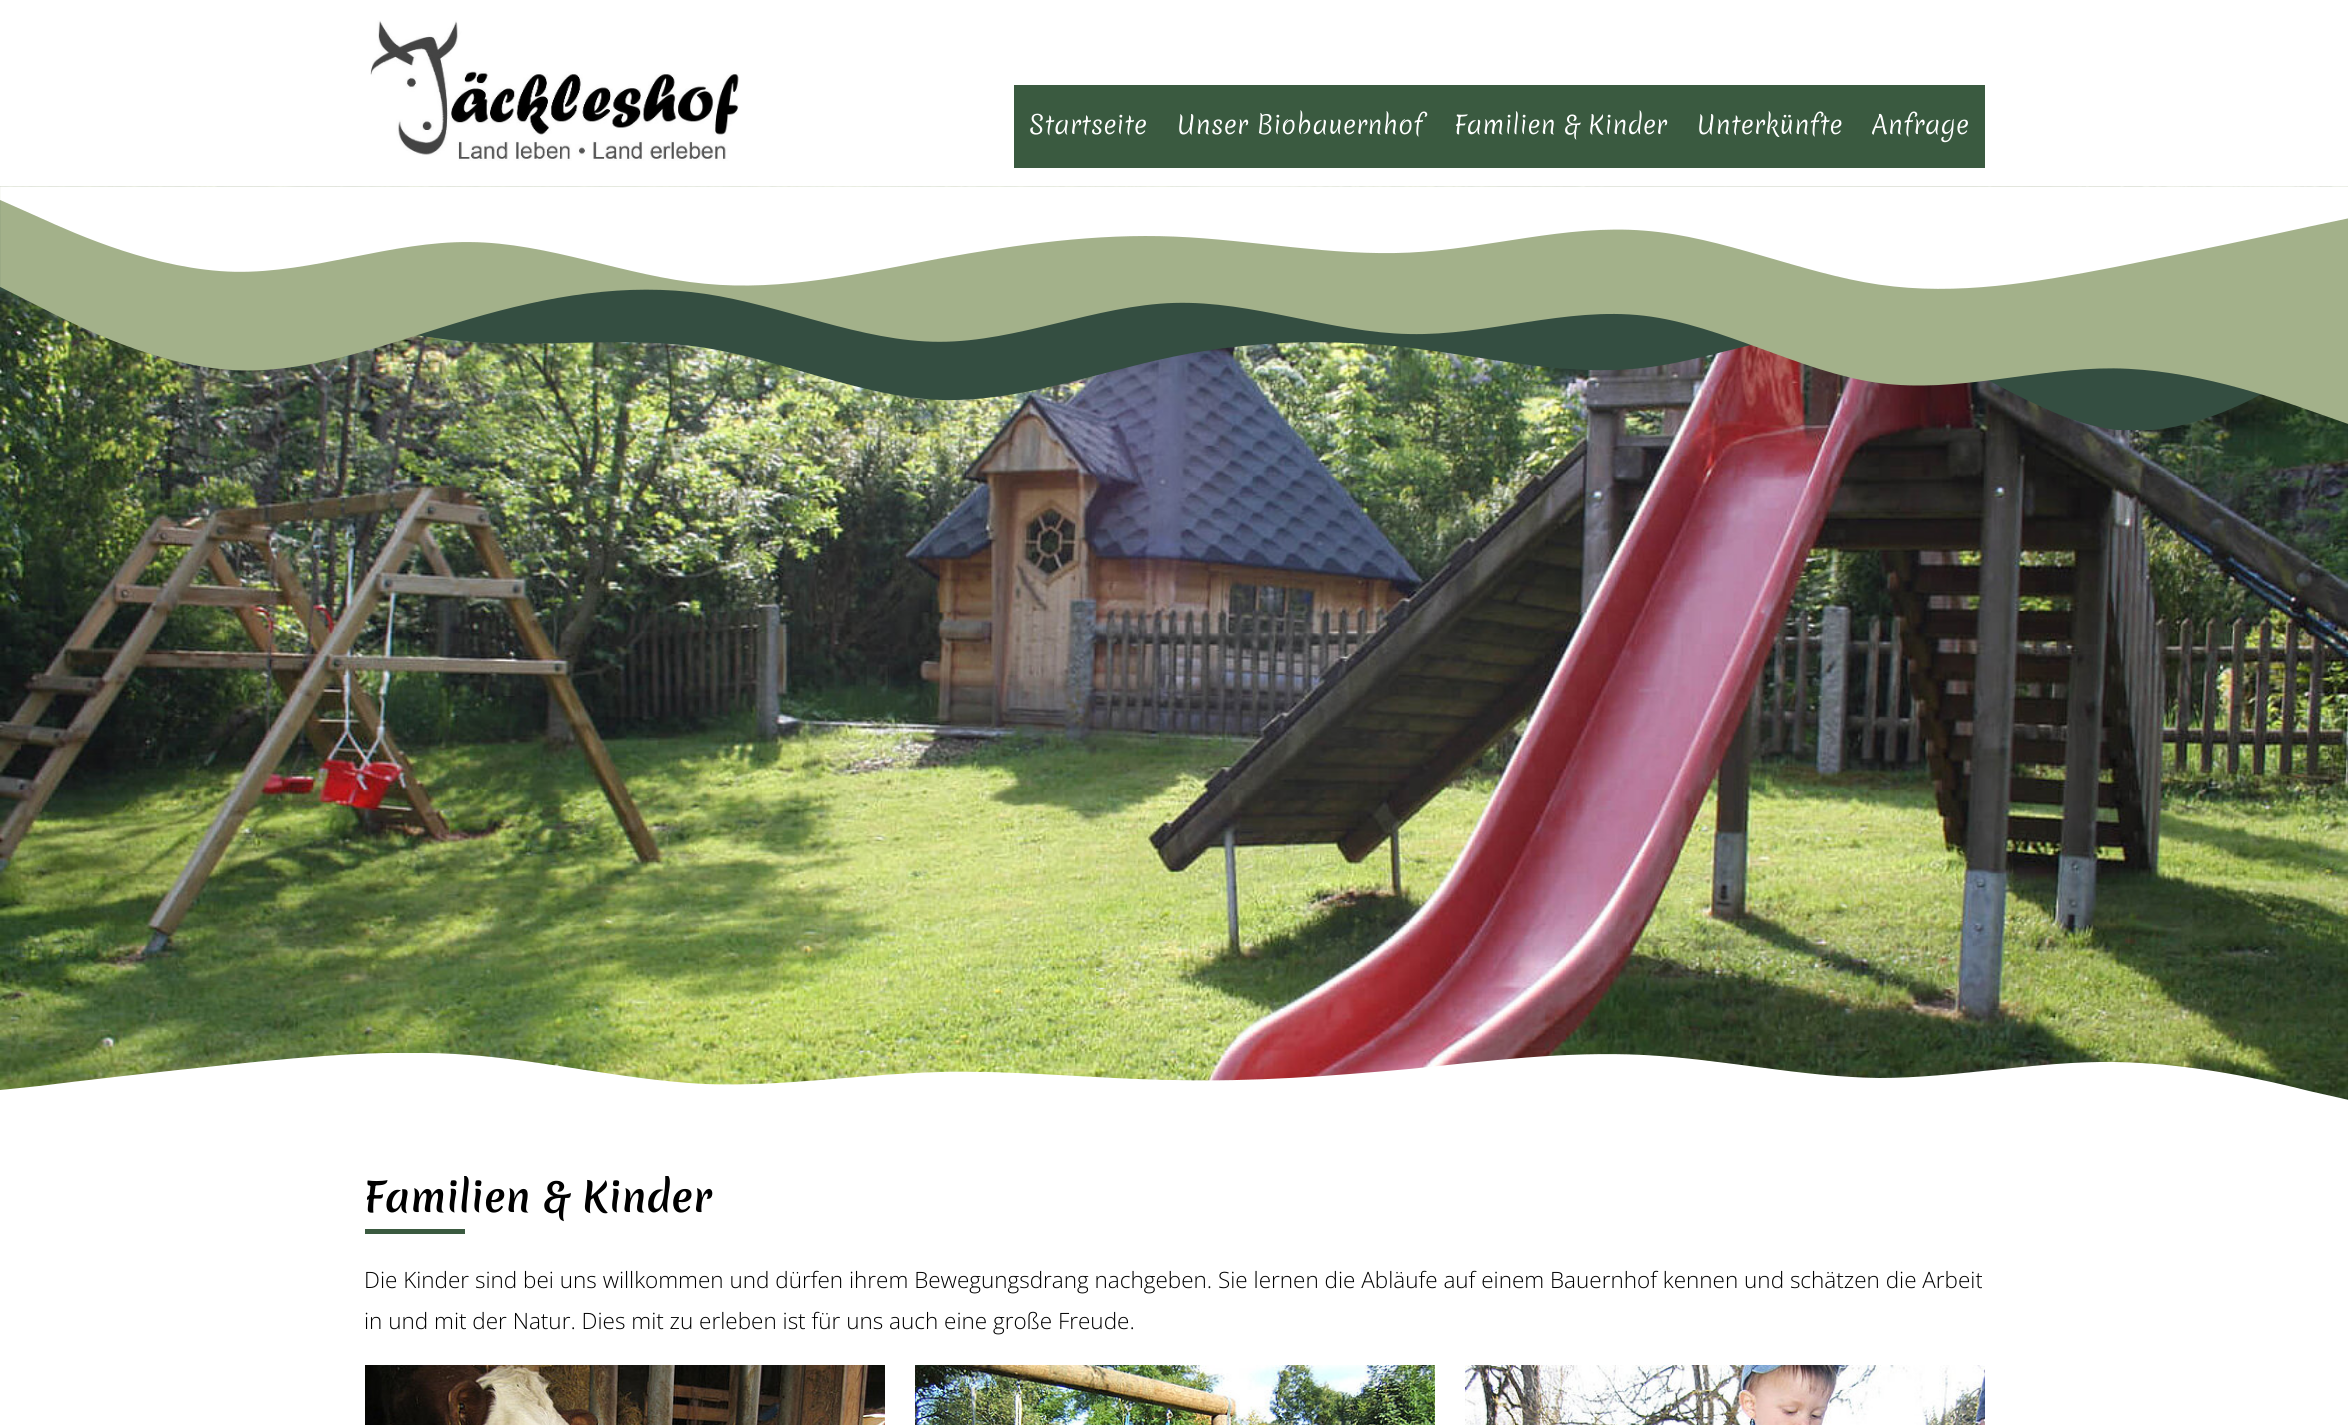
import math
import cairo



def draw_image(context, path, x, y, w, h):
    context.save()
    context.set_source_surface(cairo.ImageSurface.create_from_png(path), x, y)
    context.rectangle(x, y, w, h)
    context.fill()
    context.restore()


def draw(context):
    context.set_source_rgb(1, 1, 1)
    context.paint()
    draw_image(context, "images/1.png", 370, 20, 369, 141)
    context.set_source_rgb(58 / 255, 90 / 255, 64 / 255)
    context.rectangle(1014, 85, 971, 83)
    context.fill()
    draw_image(context, "images/2.png", 0, 186, 2348, 914)
    draw_image(context, "images/3.png", 0, 186, 2348, 244)
    context.rectangle(365, 1229, 100, 5)
    context.fill()
    draw_image(context, "images/4.png", 365, 1365, 520, 60)
    draw_image(context, "images/5.png", 915, 1365, 520, 60)
    draw_image(context, "images/6.png", 1465, 1365, 520, 60)
    context.select_font_face("Merienda Light")
    context.set_font_size(25)
    context.set_source_rgb(1, 1, 1)
    context.move_to(1029, 134)
    context.show_text("Startseite")
    context.move_to(1177, 134)
    context.show_text("Unser Biobauernhof")
    context.move_to(1454, 134)
    context.show_text("Familien & Kinder")
    context.move_to(1697, 134)
    context.show_text("Unterkünfte")
    context.move_to(1872, 134)
    context.show_text("Anfrage")
    context.select_font_face("Merienda SemiBold")
    context.set_font_size(40)
    context.set_source_rgb(0, 0, 0)
    context.move_to(364, 1212)
    context.show_text("Familien & Kinder")
    context.save()
    context.rectangle(0, 1053, 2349, 123)
    context.clip()
    context.set_source_rgb(1, 1, 1)
    context.new_path()
    context.move_to(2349, 1100)
    context.line_to(2309, 1091)
    context.curve_to(2270, 1081, 2192, 1063, 2114, 1062)
    context.curve_to(2036, 1061, 1957, 1078, 1879, 1078)
    context.curve_to(1801, 1077, 1722, 1059, 1644, 1055)
    context.curve_to(1566, 1051, 1488, 1061, 1409, 1069)
    context.curve_to(1331, 1076, 1253, 1082, 1174, 1080)
    context.curve_to(1096, 1079, 1018, 1070, 940, 1072)
    context.curve_to(861, 1074, 783, 1087, 705, 1084)
    context.curve_to(626, 1080, 548, 1061, 470, 1055)
    context.curve_to(392, 1049, 313, 1056, 235, 1064)
    context.curve_to(157, 1072, 78, 1081, 39, 1086)
    context.line_to(0, 1090)
    context.line_to(0, 1176)
    context.line_to(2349, 1176)
    context.close_path()
    context.fill()
    context.restore()
    context.select_font_face("Open Sans Light")
    context.set_font_size(22.5)
    context.move_to(364, 1288)
    context.show_text("Die Kinder sind bei uns willkommen und dürfen ihrem Bewegungsdrang nachgeben. Sie lernen die Abläufe auf einem Bauernhof kennen und schätzen die Arbeit")
    context.move_to(364, 1329)
    context.show_text("in und mit der Natur. Dies mit zu erleben ist für uns auch eine große Freude.")


surface = cairo.ImageSurface(cairo.Format.RGB24, 2348, 1425)
context = cairo.Context(surface)
options = cairo.FontOptions()
options.set_hint_metrics(cairo.HintMetrics.OFF)
options.set_hint_style(cairo.HintStyle.NONE)
context.set_font_options(options)
context.set_miter_limit(4)
draw(context)
surface.write_to_png("out.png")
